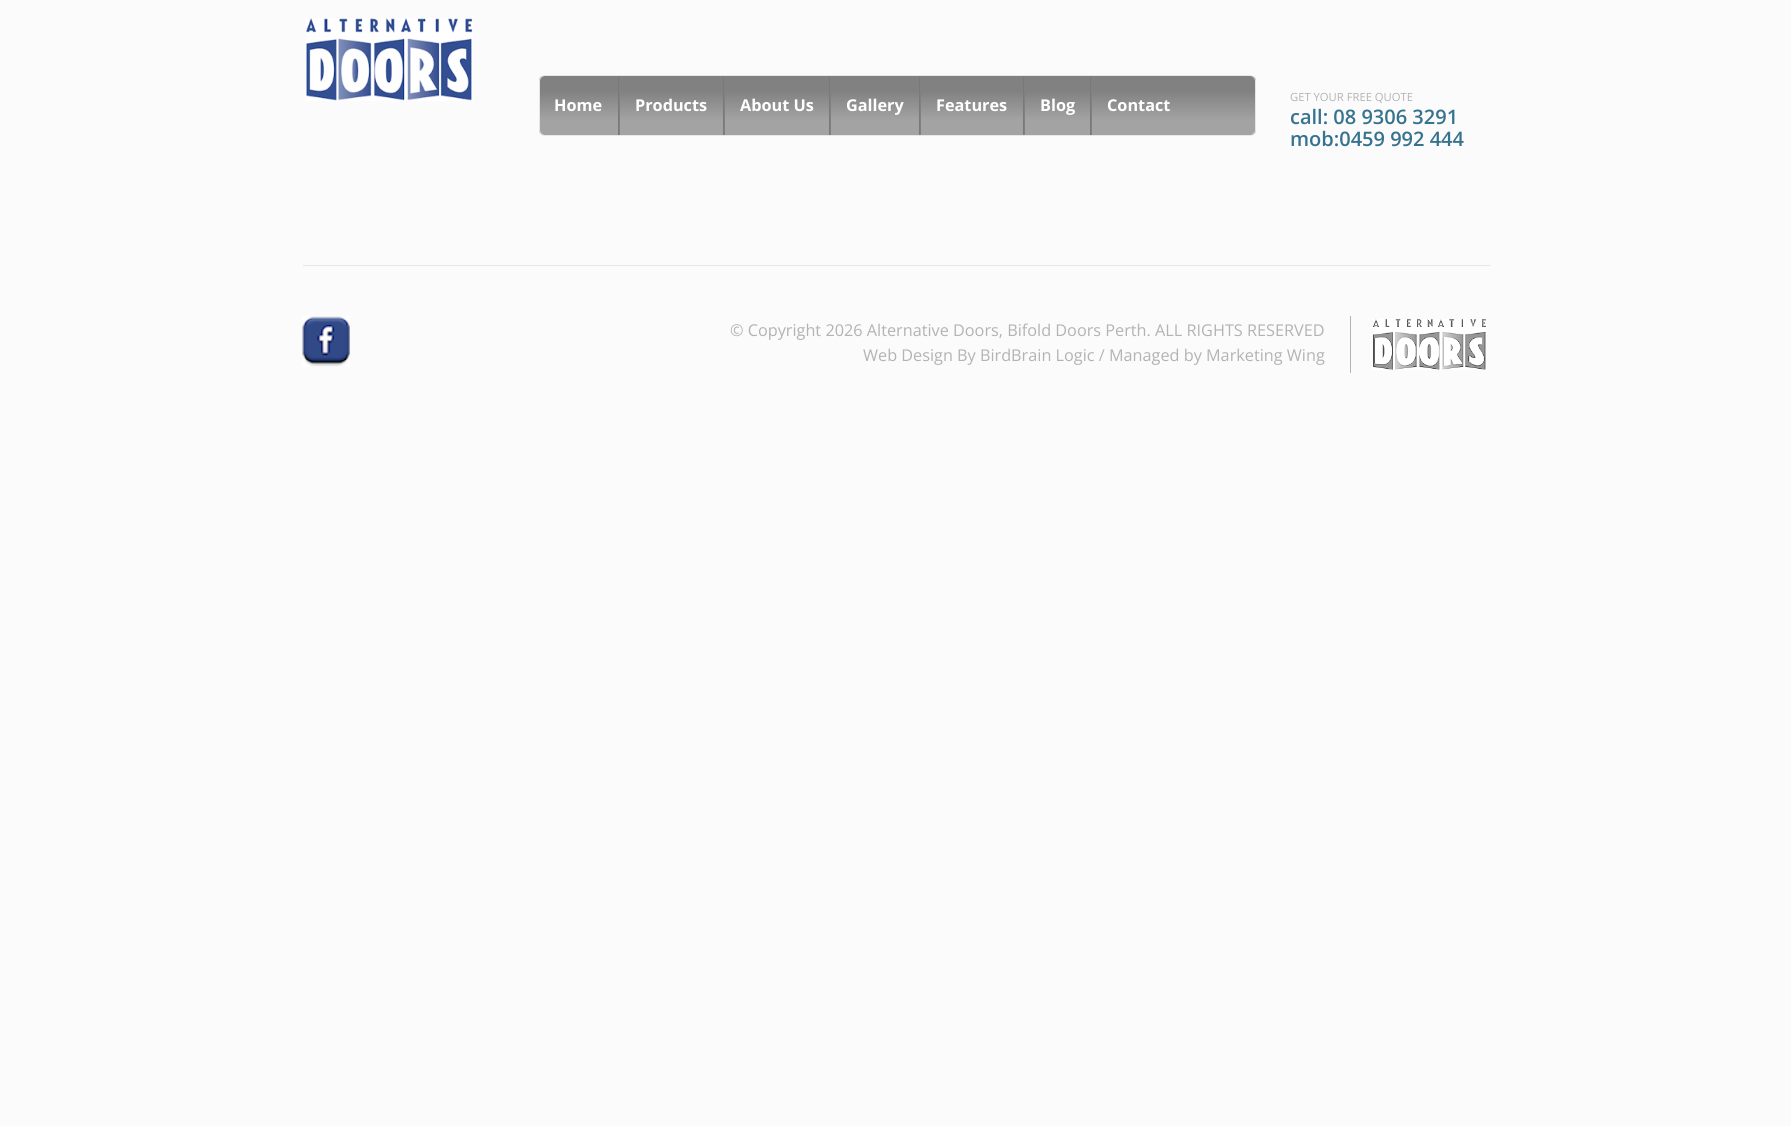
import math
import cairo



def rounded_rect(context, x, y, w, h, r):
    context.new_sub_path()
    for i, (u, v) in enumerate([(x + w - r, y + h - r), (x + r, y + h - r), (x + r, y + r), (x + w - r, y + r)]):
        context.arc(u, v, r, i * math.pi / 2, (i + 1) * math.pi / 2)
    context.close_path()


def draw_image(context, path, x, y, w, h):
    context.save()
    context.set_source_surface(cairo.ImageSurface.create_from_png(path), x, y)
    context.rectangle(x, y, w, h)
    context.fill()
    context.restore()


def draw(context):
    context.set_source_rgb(251 / 255, 251 / 255, 251 / 255)
    context.paint()
    draw_image(context, "images/1.png", 306, 18, 167, 83)
    context.save()
    rounded_rect(context, 539, 75, 717, 61, 6)
    context.clip()
    gradient = cairo.LinearGradient(540, 135, 540, 76)
    gradient.add_color_stop_rgba(0.25, 163 / 255, 163 / 255, 163 / 255, 1)
    gradient.add_color_stop_rgba(0.75, 129 / 255, 129 / 255, 129 / 255, 1)
    context.set_source(gradient)
    context.rectangle(539, 76, 717, 59)
    context.fill()
    context.restore()
    rounded_rect(context, 539.5, 75.5, 716, 60, 5.5)
    context.set_source_rgb(230 / 255, 230 / 255, 230 / 255)
    context.set_line_width(1)
    context.stroke()
    context.set_source_rgb(121 / 255, 121 / 255, 121 / 255)
    context.rectangle(618, 76, 1, 59)
    context.fill()
    context.rectangle(723, 76, 1, 59)
    context.fill()
    context.set_source_rgb(128 / 255, 128 / 255, 128 / 255)
    context.rectangle(619, 92, 1, 43)
    context.fill()
    context.set_source_rgb(121 / 255, 121 / 255, 121 / 255)
    context.rectangle(829, 76, 1, 59)
    context.fill()
    context.set_source_rgb(128 / 255, 128 / 255, 128 / 255)
    context.rectangle(724, 92, 1, 43)
    context.fill()
    context.set_source_rgb(121 / 255, 121 / 255, 121 / 255)
    context.rectangle(919, 76, 1, 59)
    context.fill()
    context.set_source_rgb(128 / 255, 128 / 255, 128 / 255)
    context.rectangle(830, 92, 1, 43)
    context.fill()
    context.set_source_rgb(121 / 255, 121 / 255, 121 / 255)
    context.rectangle(1023, 76, 1, 59)
    context.fill()
    context.set_source_rgb(128 / 255, 128 / 255, 128 / 255)
    context.rectangle(920, 92, 1, 43)
    context.fill()
    context.set_source_rgb(121 / 255, 121 / 255, 121 / 255)
    context.rectangle(1090, 76, 1, 59)
    context.fill()
    context.set_source_rgb(128 / 255, 128 / 255, 128 / 255)
    context.rectangle(1024, 92, 1, 43)
    context.fill()
    context.rectangle(1091, 92, 1, 43)
    context.fill()
    context.set_source_rgb(230 / 255, 230 / 255, 230 / 255)
    context.rectangle(303, 265, 1187, 1)
    context.fill()
    draw_image(context, "images/2.png", 302, 316, 48, 51)
    context.set_source_rgb(179 / 255, 179 / 255, 179 / 255)
    context.rectangle(1350, 316, 1, 57)
    context.fill()
    draw_image(context, "images/3.png", 1373, 319, 113, 51)
    context.select_font_face("Open Sans", cairo.FontSlant.NORMAL, cairo.FontWeight.BOLD)
    context.set_font_size(16.25)
    context.set_source_rgb(1, 1, 1)
    context.move_to(554, 111)
    context.show_text("Home")
    context.move_to(635, 111)
    context.show_text("Products")
    context.move_to(740, 111)
    context.show_text("About Us")
    context.move_to(846, 111)
    context.show_text("Gallery")
    context.move_to(936, 111)
    context.show_text("Features")
    context.move_to(1040, 111)
    context.show_text("Blog")
    context.move_to(1107, 111)
    context.show_text("Contact")
    context.select_font_face("Open Sans")
    context.set_font_size(11.25)
    context.set_source_rgb(179 / 255, 179 / 255, 179 / 255)
    context.move_to(1290, 101)
    context.show_text("GET YOUR FREE QUOTE")
    context.select_font_face("Open Sans SemiBold")
    context.set_font_size(20)
    context.set_source_rgb(54 / 255, 115 / 255, 143 / 255)
    context.move_to(1290, 124)
    context.show_text("call: 08 9306 3291")
    context.move_to(1290, 146)
    context.show_text("mob:0459 992 444")
    context.select_font_face("Open Sans")
    context.set_font_size(16.25)
    context.set_source_rgb(179 / 255, 179 / 255, 179 / 255)
    context.move_to(730, 336)
    context.show_text("© Copyright 2026 Alternative Doors, Bifold Doors Perth. ALL RIGHTS RESERVED")
    context.move_to(863, 361)
    context.show_text("Web Design By BirdBrain Logic / Managed by Marketing Wing")


surface = cairo.ImageSurface(cairo.Format.RGB24, 1791, 1126)
context = cairo.Context(surface)
options = cairo.FontOptions()
options.set_hint_metrics(cairo.HintMetrics.OFF)
options.set_hint_style(cairo.HintStyle.NONE)
context.set_font_options(options)
context.set_miter_limit(4)
draw(context)
surface.write_to_png("out.png")
